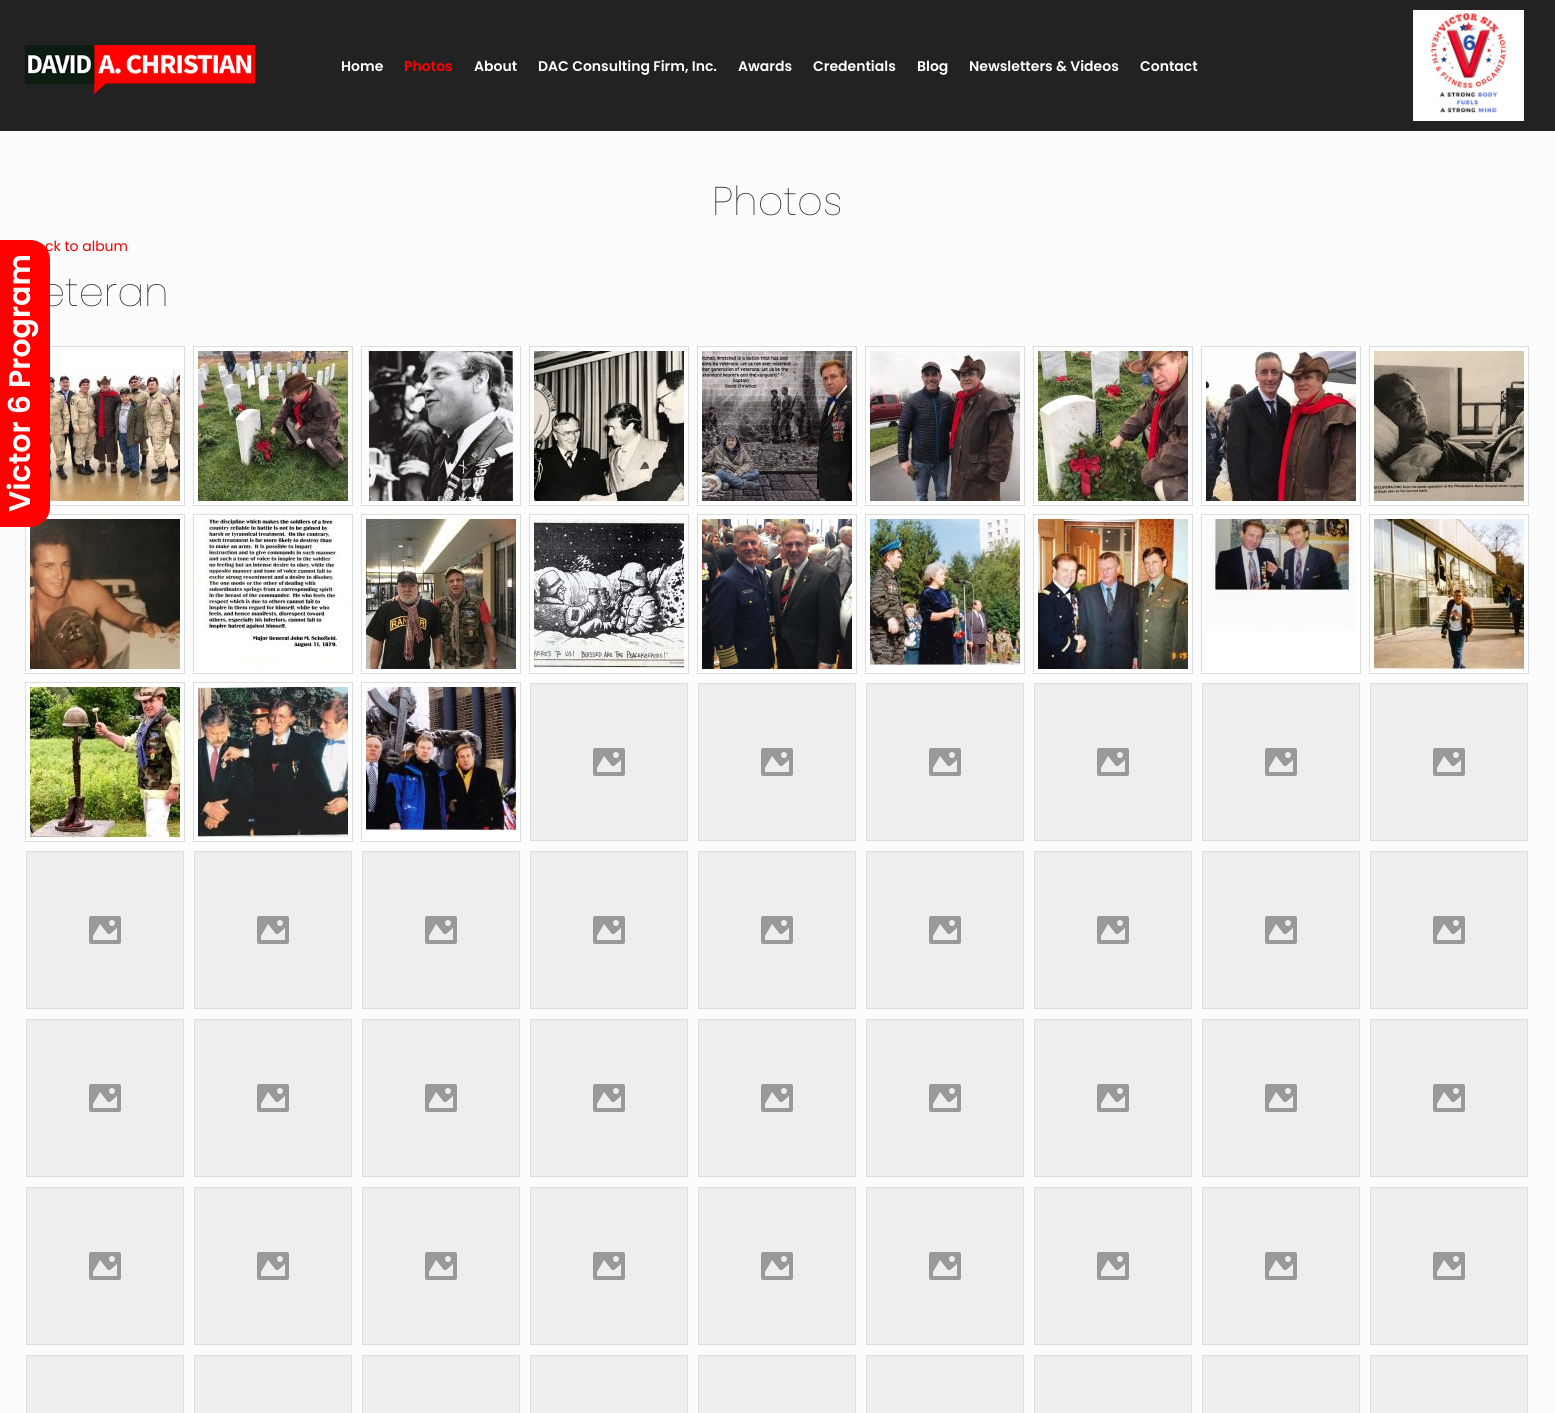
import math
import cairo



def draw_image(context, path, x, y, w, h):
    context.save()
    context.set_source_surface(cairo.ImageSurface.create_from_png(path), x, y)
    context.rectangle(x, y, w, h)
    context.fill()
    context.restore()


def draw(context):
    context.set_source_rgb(252 / 255, 252 / 255, 252 / 255)
    context.paint()
    context.set_source_rgb(34 / 255, 34 / 255, 34 / 255)
    context.rectangle(0, 0, 1555, 131)
    context.fill()
    draw_image(context, "images/1.png", 25, 45, 230, 49)
    draw_image(context, "images/2.png", 1413, 10, 111, 111)
    context.rectangle(25.5, 346.5, 159, 159)
    context.set_source_rgb(221 / 255, 221 / 255, 221 / 255)
    context.set_line_width(1)
    context.stroke()
    context.set_source_rgb(1, 1, 1)
    context.rectangle(50, 347, 134, 158)
    context.fill()
    draw_image(context, "images/3.png", 50, 367, 130, 134)
    context.rectangle(193.5, 346.5, 159, 159)
    context.set_source_rgb(221 / 255, 221 / 255, 221 / 255)
    context.stroke()
    context.set_source_rgb(1, 1, 1)
    context.rectangle(194, 347, 158, 158)
    context.fill()
    draw_image(context, "images/4.png", 198, 351, 150, 150)
    context.rectangle(361.5, 346.5, 159, 159)
    context.set_source_rgb(221 / 255, 221 / 255, 221 / 255)
    context.stroke()
    context.set_source_rgb(1, 1, 1)
    context.rectangle(362, 347, 158, 158)
    context.fill()
    draw_image(context, "images/5.png", 366, 351, 150, 150)
    context.rectangle(529.5, 346.5, 159, 159)
    context.set_source_rgb(221 / 255, 221 / 255, 221 / 255)
    context.stroke()
    context.set_source_rgb(1, 1, 1)
    context.rectangle(530, 347, 158, 158)
    context.fill()
    draw_image(context, "images/6.png", 534, 351, 150, 150)
    context.rectangle(697.5, 346.5, 159, 159)
    context.set_source_rgb(221 / 255, 221 / 255, 221 / 255)
    context.stroke()
    context.set_source_rgb(1, 1, 1)
    context.rectangle(698, 347, 158, 158)
    context.fill()
    draw_image(context, "images/7.png", 702, 351, 150, 150)
    context.rectangle(865.5, 346.5, 159, 159)
    context.set_source_rgb(221 / 255, 221 / 255, 221 / 255)
    context.stroke()
    context.set_source_rgb(1, 1, 1)
    context.rectangle(866, 347, 158, 158)
    context.fill()
    draw_image(context, "images/8.png", 870, 351, 150, 150)
    context.rectangle(1033.5, 346.5, 159, 159)
    context.set_source_rgb(221 / 255, 221 / 255, 221 / 255)
    context.stroke()
    context.set_source_rgb(1, 1, 1)
    context.rectangle(1034, 347, 158, 158)
    context.fill()
    draw_image(context, "images/9.png", 1038, 351, 150, 150)
    context.rectangle(1201.5, 346.5, 159, 159)
    context.set_source_rgb(221 / 255, 221 / 255, 221 / 255)
    context.stroke()
    context.set_source_rgb(1, 1, 1)
    context.rectangle(1202, 347, 158, 158)
    context.fill()
    draw_image(context, "images/10.png", 1206, 351, 150, 150)
    context.rectangle(1369.5, 346.5, 159, 159)
    context.set_source_rgb(221 / 255, 221 / 255, 221 / 255)
    context.stroke()
    context.set_source_rgb(1, 1, 1)
    context.rectangle(1370, 347, 158, 158)
    context.fill()
    draw_image(context, "images/11.png", 1374, 351, 150, 150)
    context.rectangle(25.5, 514.5, 159, 159)
    context.set_source_rgb(221 / 255, 221 / 255, 221 / 255)
    context.stroke()
    context.set_source_rgb(1, 1, 1)
    context.rectangle(26, 515, 158, 158)
    context.fill()
    draw_image(context, "images/12.png", 30, 519, 150, 150)
    context.rectangle(193.5, 514.5, 159, 159)
    context.set_source_rgb(221 / 255, 221 / 255, 221 / 255)
    context.stroke()
    context.set_source_rgb(1, 1, 1)
    context.rectangle(194, 515, 158, 158)
    context.fill()
    draw_image(context, "images/13.png", 198, 519, 150, 150)
    context.rectangle(361.5, 514.5, 159, 159)
    context.set_source_rgb(221 / 255, 221 / 255, 221 / 255)
    context.stroke()
    context.set_source_rgb(1, 1, 1)
    context.rectangle(362, 515, 158, 158)
    context.fill()
    draw_image(context, "images/14.png", 366, 519, 150, 150)
    context.rectangle(529.5, 514.5, 159, 159)
    context.set_source_rgb(221 / 255, 221 / 255, 221 / 255)
    context.stroke()
    context.set_source_rgb(1, 1, 1)
    context.rectangle(530, 515, 158, 158)
    context.fill()
    draw_image(context, "images/15.png", 534, 519, 150, 150)
    context.rectangle(697.5, 514.5, 159, 159)
    context.set_source_rgb(221 / 255, 221 / 255, 221 / 255)
    context.stroke()
    context.set_source_rgb(1, 1, 1)
    context.rectangle(698, 515, 158, 158)
    context.fill()
    draw_image(context, "images/16.png", 702, 519, 150, 150)
    context.rectangle(865.5, 514.5, 159, 159)
    context.set_source_rgb(221 / 255, 221 / 255, 221 / 255)
    context.stroke()
    context.set_source_rgb(1, 1, 1)
    context.rectangle(866, 515, 158, 158)
    context.fill()
    draw_image(context, "images/17.png", 870, 519, 150, 150)
    context.rectangle(1033.5, 514.5, 159, 159)
    context.set_source_rgb(221 / 255, 221 / 255, 221 / 255)
    context.stroke()
    context.set_source_rgb(1, 1, 1)
    context.rectangle(1034, 515, 158, 158)
    context.fill()
    draw_image(context, "images/18.png", 1038, 519, 150, 150)
    context.rectangle(1201.5, 514.5, 159, 159)
    context.set_source_rgb(221 / 255, 221 / 255, 221 / 255)
    context.stroke()
    context.set_source_rgb(1, 1, 1)
    context.rectangle(1202, 515, 158, 158)
    context.fill()
    draw_image(context, "images/19.png", 1206, 519, 150, 112)
    context.rectangle(1369.5, 514.5, 159, 159)
    context.set_source_rgb(221 / 255, 221 / 255, 221 / 255)
    context.stroke()
    context.set_source_rgb(1, 1, 1)
    context.rectangle(1370, 515, 158, 158)
    context.fill()
    draw_image(context, "images/20.png", 1374, 519, 150, 150)
    context.rectangle(25.5, 682.5, 159, 159)
    context.set_source_rgb(221 / 255, 221 / 255, 221 / 255)
    context.stroke()
    context.set_source_rgb(1, 1, 1)
    context.rectangle(26, 683, 158, 158)
    context.fill()
    draw_image(context, "images/21.png", 30, 687, 150, 150)
    context.rectangle(193.5, 682.5, 159, 159)
    context.set_source_rgb(221 / 255, 221 / 255, 221 / 255)
    context.stroke()
    context.set_source_rgb(1, 1, 1)
    context.rectangle(194, 683, 158, 158)
    context.fill()
    draw_image(context, "images/22.png", 198, 687, 150, 150)
    context.rectangle(361.5, 682.5, 159, 159)
    context.set_source_rgb(221 / 255, 221 / 255, 221 / 255)
    context.stroke()
    context.set_source_rgb(1, 1, 1)
    context.rectangle(362, 683, 158, 158)
    context.fill()
    draw_image(context, "images/23.png", 366, 687, 150, 145)
    context.set_source_rgb(238 / 255, 238 / 255, 238 / 255)
    context.rectangle(530.5, 683.5, 157, 157)
    context.fill_preserve()
    context.set_source_rgb(221 / 255, 221 / 255, 221 / 255)
    context.stroke()
    draw_image(context, "images/24.png", 593, 748, 32, 28)
    context.set_source_rgb(238 / 255, 238 / 255, 238 / 255)
    context.rectangle(698.5, 683.5, 157, 157)
    context.fill_preserve()
    context.set_source_rgb(221 / 255, 221 / 255, 221 / 255)
    context.stroke()
    draw_image(context, "images/24.png", 761, 748, 32, 28)
    context.set_source_rgb(238 / 255, 238 / 255, 238 / 255)
    context.rectangle(866.5, 683.5, 157, 157)
    context.fill_preserve()
    context.set_source_rgb(221 / 255, 221 / 255, 221 / 255)
    context.stroke()
    draw_image(context, "images/24.png", 929, 748, 32, 28)
    context.set_source_rgb(238 / 255, 238 / 255, 238 / 255)
    context.rectangle(1034.5, 683.5, 157, 157)
    context.fill_preserve()
    context.set_source_rgb(221 / 255, 221 / 255, 221 / 255)
    context.stroke()
    draw_image(context, "images/24.png", 1097, 748, 32, 28)
    context.set_source_rgb(238 / 255, 238 / 255, 238 / 255)
    context.rectangle(1202.5, 683.5, 157, 157)
    context.fill_preserve()
    context.set_source_rgb(221 / 255, 221 / 255, 221 / 255)
    context.stroke()
    draw_image(context, "images/25.png", 1265, 748, 32, 28)
    context.set_source_rgb(238 / 255, 238 / 255, 238 / 255)
    context.rectangle(1370.5, 683.5, 157, 157)
    context.fill_preserve()
    context.set_source_rgb(221 / 255, 221 / 255, 221 / 255)
    context.stroke()
    draw_image(context, "images/24.png", 1433, 748, 32, 28)
    context.set_source_rgb(238 / 255, 238 / 255, 238 / 255)
    context.rectangle(26.5, 851.5, 157, 157)
    context.fill_preserve()
    context.set_source_rgb(221 / 255, 221 / 255, 221 / 255)
    context.stroke()
    draw_image(context, "images/26.png", 89, 916, 32, 28)
    context.set_source_rgb(238 / 255, 238 / 255, 238 / 255)
    context.rectangle(194.5, 851.5, 157, 157)
    context.fill_preserve()
    context.set_source_rgb(221 / 255, 221 / 255, 221 / 255)
    context.stroke()
    draw_image(context, "images/26.png", 257, 916, 32, 28)
    context.set_source_rgb(238 / 255, 238 / 255, 238 / 255)
    context.rectangle(362.5, 851.5, 157, 157)
    context.fill_preserve()
    context.set_source_rgb(221 / 255, 221 / 255, 221 / 255)
    context.stroke()
    draw_image(context, "images/26.png", 425, 916, 32, 28)
    context.set_source_rgb(238 / 255, 238 / 255, 238 / 255)
    context.rectangle(530.5, 851.5, 157, 157)
    context.fill_preserve()
    context.set_source_rgb(221 / 255, 221 / 255, 221 / 255)
    context.stroke()
    draw_image(context, "images/26.png", 593, 916, 32, 28)
    context.set_source_rgb(238 / 255, 238 / 255, 238 / 255)
    context.rectangle(698.5, 851.5, 157, 157)
    context.fill_preserve()
    context.set_source_rgb(221 / 255, 221 / 255, 221 / 255)
    context.stroke()
    draw_image(context, "images/26.png", 761, 916, 32, 28)
    context.set_source_rgb(238 / 255, 238 / 255, 238 / 255)
    context.rectangle(866.5, 851.5, 157, 157)
    context.fill_preserve()
    context.set_source_rgb(221 / 255, 221 / 255, 221 / 255)
    context.stroke()
    draw_image(context, "images/26.png", 929, 916, 32, 28)
    context.set_source_rgb(238 / 255, 238 / 255, 238 / 255)
    context.rectangle(1034.5, 851.5, 157, 157)
    context.fill_preserve()
    context.set_source_rgb(221 / 255, 221 / 255, 221 / 255)
    context.stroke()
    draw_image(context, "images/26.png", 1097, 916, 32, 28)
    context.set_source_rgb(238 / 255, 238 / 255, 238 / 255)
    context.rectangle(1202.5, 851.5, 157, 157)
    context.fill_preserve()
    context.set_source_rgb(221 / 255, 221 / 255, 221 / 255)
    context.stroke()
    draw_image(context, "images/27.png", 1265, 916, 32, 28)
    context.set_source_rgb(238 / 255, 238 / 255, 238 / 255)
    context.rectangle(1370.5, 851.5, 157, 157)
    context.fill_preserve()
    context.set_source_rgb(221 / 255, 221 / 255, 221 / 255)
    context.stroke()
    draw_image(context, "images/26.png", 1433, 916, 32, 28)
    context.set_source_rgb(238 / 255, 238 / 255, 238 / 255)
    context.rectangle(26.5, 1019.5, 157, 157)
    context.fill_preserve()
    context.set_source_rgb(221 / 255, 221 / 255, 221 / 255)
    context.stroke()
    draw_image(context, "images/26.png", 89, 1084, 32, 28)
    context.set_source_rgb(238 / 255, 238 / 255, 238 / 255)
    context.rectangle(194.5, 1019.5, 157, 157)
    context.fill_preserve()
    context.set_source_rgb(221 / 255, 221 / 255, 221 / 255)
    context.stroke()
    draw_image(context, "images/26.png", 257, 1084, 32, 28)
    context.set_source_rgb(238 / 255, 238 / 255, 238 / 255)
    context.rectangle(362.5, 1019.5, 157, 157)
    context.fill_preserve()
    context.set_source_rgb(221 / 255, 221 / 255, 221 / 255)
    context.stroke()
    draw_image(context, "images/26.png", 425, 1084, 32, 28)
    context.set_source_rgb(238 / 255, 238 / 255, 238 / 255)
    context.rectangle(530.5, 1019.5, 157, 157)
    context.fill_preserve()
    context.set_source_rgb(221 / 255, 221 / 255, 221 / 255)
    context.stroke()
    draw_image(context, "images/26.png", 593, 1084, 32, 28)
    context.set_source_rgb(238 / 255, 238 / 255, 238 / 255)
    context.rectangle(698.5, 1019.5, 157, 157)
    context.fill_preserve()
    context.set_source_rgb(221 / 255, 221 / 255, 221 / 255)
    context.stroke()
    draw_image(context, "images/26.png", 761, 1084, 32, 28)
    context.set_source_rgb(238 / 255, 238 / 255, 238 / 255)
    context.rectangle(866.5, 1019.5, 157, 157)
    context.fill_preserve()
    context.set_source_rgb(221 / 255, 221 / 255, 221 / 255)
    context.stroke()
    draw_image(context, "images/26.png", 929, 1084, 32, 28)
    context.set_source_rgb(238 / 255, 238 / 255, 238 / 255)
    context.rectangle(1034.5, 1019.5, 157, 157)
    context.fill_preserve()
    context.set_source_rgb(221 / 255, 221 / 255, 221 / 255)
    context.stroke()
    draw_image(context, "images/26.png", 1097, 1084, 32, 28)
    context.set_source_rgb(238 / 255, 238 / 255, 238 / 255)
    context.rectangle(1202.5, 1019.5, 157, 157)
    context.fill_preserve()
    context.set_source_rgb(221 / 255, 221 / 255, 221 / 255)
    context.stroke()
    draw_image(context, "images/27.png", 1265, 1084, 32, 28)
    context.set_source_rgb(238 / 255, 238 / 255, 238 / 255)
    context.rectangle(1370.5, 1019.5, 157, 157)
    context.fill_preserve()
    context.set_source_rgb(221 / 255, 221 / 255, 221 / 255)
    context.stroke()
    draw_image(context, "images/26.png", 1433, 1084, 32, 28)
    context.set_source_rgb(238 / 255, 238 / 255, 238 / 255)
    context.rectangle(26.5, 1187.5, 157, 157)
    context.fill_preserve()
    context.set_source_rgb(221 / 255, 221 / 255, 221 / 255)
    context.stroke()
    draw_image(context, "images/28.png", 89, 1252, 32, 28)
    context.set_source_rgb(238 / 255, 238 / 255, 238 / 255)
    context.rectangle(194.5, 1187.5, 157, 157)
    context.fill_preserve()
    context.set_source_rgb(221 / 255, 221 / 255, 221 / 255)
    context.stroke()
    draw_image(context, "images/28.png", 257, 1252, 32, 28)
    context.set_source_rgb(238 / 255, 238 / 255, 238 / 255)
    context.rectangle(362.5, 1187.5, 157, 157)
    context.fill_preserve()
    context.set_source_rgb(221 / 255, 221 / 255, 221 / 255)
    context.stroke()
    draw_image(context, "images/28.png", 425, 1252, 32, 28)
    context.set_source_rgb(238 / 255, 238 / 255, 238 / 255)
    context.rectangle(530.5, 1187.5, 157, 157)
    context.fill_preserve()
    context.set_source_rgb(221 / 255, 221 / 255, 221 / 255)
    context.stroke()
    draw_image(context, "images/28.png", 593, 1252, 32, 28)
    context.set_source_rgb(238 / 255, 238 / 255, 238 / 255)
    context.rectangle(698.5, 1187.5, 157, 157)
    context.fill_preserve()
    context.set_source_rgb(221 / 255, 221 / 255, 221 / 255)
    context.stroke()
    draw_image(context, "images/28.png", 761, 1252, 32, 28)
    context.set_source_rgb(238 / 255, 238 / 255, 238 / 255)
    context.rectangle(866.5, 1187.5, 157, 157)
    context.fill_preserve()
    context.set_source_rgb(221 / 255, 221 / 255, 221 / 255)
    context.stroke()
    draw_image(context, "images/28.png", 929, 1252, 32, 28)
    context.set_source_rgb(238 / 255, 238 / 255, 238 / 255)
    context.rectangle(1034.5, 1187.5, 157, 157)
    context.fill_preserve()
    context.set_source_rgb(221 / 255, 221 / 255, 221 / 255)
    context.stroke()
    draw_image(context, "images/28.png", 1097, 1252, 32, 28)
    context.set_source_rgb(238 / 255, 238 / 255, 238 / 255)
    context.rectangle(1202.5, 1187.5, 157, 157)
    context.fill_preserve()
    context.set_source_rgb(221 / 255, 221 / 255, 221 / 255)
    context.stroke()
    draw_image(context, "images/29.png", 1265, 1252, 32, 28)
    context.set_source_rgb(238 / 255, 238 / 255, 238 / 255)
    context.rectangle(1370.5, 1187.5, 157, 157)
    context.fill_preserve()
    context.set_source_rgb(221 / 255, 221 / 255, 221 / 255)
    context.stroke()
    draw_image(context, "images/28.png", 1433, 1252, 32, 28)
    context.set_source_rgb(238 / 255, 238 / 255, 238 / 255)
    context.rectangle(26.5, 1355.5, 157, 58)
    context.fill_preserve()
    context.set_source_rgb(221 / 255, 221 / 255, 221 / 255)
    context.stroke()
    context.set_source_rgb(238 / 255, 238 / 255, 238 / 255)
    context.rectangle(194.5, 1355.5, 157, 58)
    context.fill_preserve()
    context.set_source_rgb(221 / 255, 221 / 255, 221 / 255)
    context.stroke()
    context.set_source_rgb(238 / 255, 238 / 255, 238 / 255)
    context.rectangle(362.5, 1355.5, 157, 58)
    context.fill_preserve()
    context.set_source_rgb(221 / 255, 221 / 255, 221 / 255)
    context.stroke()
    context.set_source_rgb(238 / 255, 238 / 255, 238 / 255)
    context.rectangle(530.5, 1355.5, 157, 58)
    context.fill_preserve()
    context.set_source_rgb(221 / 255, 221 / 255, 221 / 255)
    context.stroke()
    context.set_source_rgb(238 / 255, 238 / 255, 238 / 255)
    context.rectangle(698.5, 1355.5, 157, 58)
    context.fill_preserve()
    context.set_source_rgb(221 / 255, 221 / 255, 221 / 255)
    context.stroke()
    context.set_source_rgb(238 / 255, 238 / 255, 238 / 255)
    context.rectangle(866.5, 1355.5, 157, 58)
    context.fill_preserve()
    context.set_source_rgb(221 / 255, 221 / 255, 221 / 255)
    context.stroke()
    context.set_source_rgb(238 / 255, 238 / 255, 238 / 255)
    context.rectangle(1034.5, 1355.5, 157, 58)
    context.fill_preserve()
    context.set_source_rgb(221 / 255, 221 / 255, 221 / 255)
    context.stroke()
    context.set_source_rgb(238 / 255, 238 / 255, 238 / 255)
    context.rectangle(1202.5, 1355.5, 157, 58)
    context.fill_preserve()
    context.set_source_rgb(221 / 255, 221 / 255, 221 / 255)
    context.stroke()
    context.set_source_rgb(238 / 255, 238 / 255, 238 / 255)
    context.rectangle(1370.5, 1355.5, 157, 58)
    context.fill_preserve()
    context.set_source_rgb(221 / 255, 221 / 255, 221 / 255)
    context.stroke()
    context.select_font_face("Poppins SemiBold")
    context.set_font_size(14)
    context.set_source_rgb(1, 1, 1)
    context.move_to(341, 71)
    context.show_text("Home")
    context.set_source_rgb(1, 0, 0)
    context.move_to(404, 71)
    context.show_text("Photos")
    context.set_source_rgb(1, 1, 1)
    context.move_to(474, 71)
    context.show_text("About")
    context.move_to(538, 71)
    context.show_text("DAC Consulting Firm, Inc.")
    context.move_to(738, 71)
    context.show_text("Awards")
    context.move_to(813, 71)
    context.show_text("Credentials")
    context.move_to(917, 71)
    context.show_text("Blog")
    context.move_to(969, 71)
    context.show_text("Newsletters & Videos")
    context.move_to(1140, 71)
    context.show_text("Contact")
    context.select_font_face("Poppins Thin")
    context.set_font_size(40)
    context.set_source_rgb(28 / 255, 28 / 255, 28 / 255)
    context.move_to(712, 215)
    context.show_text("Photos")
    context.select_font_face("Poppins")
    context.set_font_size(14)
    context.set_source_rgb(240 / 255, 0, 2 / 255)
    context.move_to(45, 251)
    context.show_text("ck to album")
    context.select_font_face("Poppins Thin")
    context.set_font_size(40)
    context.set_source_rgb(28 / 255, 28 / 255, 28 / 255)
    context.move_to(40, 306)
    context.show_text("eteran")
    context.set_source_rgb(1, 0, 0)
    context.new_path()
    context.move_to(-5, 527)
    context.line_to(-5, 240)
    context.line_to(30, 240)
    context.curve_to(41, 240, 50, 248, 50, 260)
    context.line_to(50, 507)
    context.curve_to(50, 518, 41, 527, 30, 527)
    context.close_path()
    context.fill()
    context.select_font_face("Poppins SemiBold")
    context.set_font_size(30)
    context.set_source_rgb(1, 1, 1)
    context.save()
    context.translate(30, 512)
    context.rotate(-90 * math.pi / 180)
    context.move_to(0, 0)
    context.show_text("Victor 6 Program")
    context.restore()


surface = cairo.ImageSurface(cairo.Format.RGB24, 1555, 1413)
context = cairo.Context(surface)
options = cairo.FontOptions()
options.set_hint_metrics(cairo.HintMetrics.OFF)
options.set_hint_style(cairo.HintStyle.NONE)
context.set_font_options(options)
context.set_miter_limit(4)
draw(context)
surface.write_to_png("out.png")
